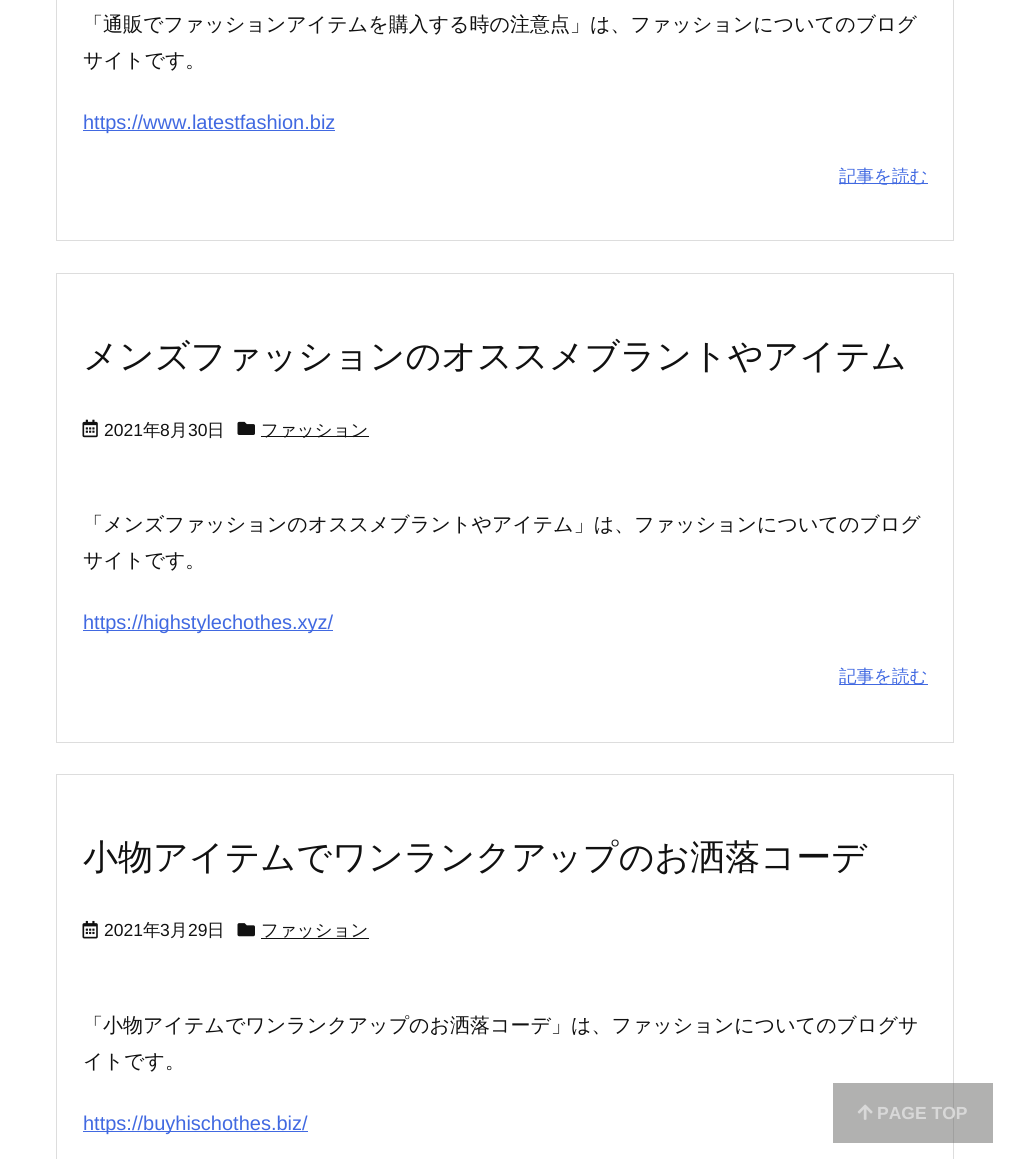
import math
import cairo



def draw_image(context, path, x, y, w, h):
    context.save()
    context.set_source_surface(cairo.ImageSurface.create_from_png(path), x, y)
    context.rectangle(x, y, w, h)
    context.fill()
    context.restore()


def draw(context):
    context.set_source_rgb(1, 1, 1)
    context.paint()
    context.rectangle(56.5, -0.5, 897, 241)
    context.set_source_rgb(221 / 255, 221 / 255, 221 / 255)
    context.set_line_width(1)
    context.stroke()
    context.set_source_rgb(65 / 255, 105 / 255, 225 / 255)
    context.rectangle(83, 130, 252, 1)
    context.fill()
    context.rectangle(839, 183, 89, 1)
    context.fill()
    context.rectangle(56.5, 273.5, 897, 469)
    context.set_source_rgb(221 / 255, 221 / 255, 221 / 255)
    context.stroke()
    draw_image(context, "images/1.png", 82, 419, 16, 19)
    draw_image(context, "images/2.png", 237, 421, 18, 14)
    context.set_source_rgb(17 / 255, 17 / 255, 17 / 255)
    context.rectangle(261, 436, 108, 1)
    context.fill()
    context.set_source_rgb(65 / 255, 105 / 255, 225 / 255)
    context.rectangle(83, 630, 250, 1)
    context.fill()
    context.rectangle(839, 684, 89, 1)
    context.fill()
    context.rectangle(56.5, 774.5, 897, 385)
    context.set_source_rgb(221 / 255, 221 / 255, 221 / 255)
    context.stroke()
    draw_image(context, "images/3.png", 82, 920, 16, 19)
    draw_image(context, "images/4.png", 237, 923, 18, 14)
    context.set_source_rgb(17 / 255, 17 / 255, 17 / 255)
    context.rectangle(261, 938, 108, 1)
    context.fill()
    context.set_source_rgb(65 / 255, 105 / 255, 225 / 255)
    context.rectangle(83, 1131, 225, 1)
    context.fill()
    context.set_source_rgba(101 / 255, 100 / 255, 99 / 255, 0.5)
    context.rectangle(833, 1083, 160, 60)
    context.fill()
    draw_image(context, "images/5.png", 857, 1104, 16, 16)
    context.select_font_face("WenQuanYi Zen Hei Medium")
    context.set_font_size(20)
    context.set_source_rgb(17 / 255, 17 / 255, 17 / 255)
    context.move_to(83, 31)
    context.show_text("「通販でファッションアイテムを購入する時の注意点」は、ファッションについてのブログ")
    context.move_to(83, 67)
    context.show_text("サイトです。")
    context.select_font_face("Liberation Sans")
    context.set_source_rgb(65 / 255, 105 / 255, 225 / 255)
    context.move_to(83, 129)
    context.show_text("https://www.latestfashion.biz")
    context.select_font_face("WenQuanYi Zen Hei Medium")
    context.set_font_size(17.5)
    context.move_to(839, 182)
    context.show_text("記事を読む")
    context.set_font_size(35)
    context.set_source_rgb(17 / 255, 17 / 255, 17 / 255)
    context.move_to(83, 368)
    context.show_text("メンズファッションのオススメブラントやアイテム")
    context.select_font_face("Liberation Sans")
    context.set_font_size(17.5)
    context.move_to(104, 436)
    context.show_text("2021")
    context.select_font_face("WenQuanYi Zen Hei Medium")
    context.move_to(143, 436)
    context.show_text("年")
    context.select_font_face("Liberation Sans")
    context.move_to(160, 436)
    context.show_text("8")
    context.select_font_face("WenQuanYi Zen Hei Medium")
    context.move_to(170, 436)
    context.show_text("月")
    context.select_font_face("Liberation Sans")
    context.move_to(188, 436)
    context.show_text("30")
    context.select_font_face("WenQuanYi Zen Hei Medium")
    context.move_to(207, 436)
    context.show_text("日")
    context.move_to(261, 436)
    context.show_text("ファッション")
    context.set_font_size(20)
    context.move_to(83, 531)
    context.show_text("「メンズファッションのオススメブラントやアイテム」は、ファッションについてのブログ")
    context.move_to(83, 567)
    context.show_text("サイトです。")
    context.select_font_face("Liberation Sans")
    context.set_source_rgb(65 / 255, 105 / 255, 225 / 255)
    context.move_to(83, 629)
    context.show_text("https://highstylechothes.xyz/")
    context.select_font_face("WenQuanYi Zen Hei Medium")
    context.set_font_size(17.5)
    context.move_to(839, 682)
    context.show_text("記事を読む")
    context.set_font_size(35)
    context.set_source_rgb(17 / 255, 17 / 255, 17 / 255)
    context.move_to(83, 869)
    context.show_text("小物アイテムでワンランクアップのお洒落コーデ")
    context.select_font_face("Liberation Sans")
    context.set_font_size(17.5)
    context.move_to(104, 936)
    context.show_text("2021")
    context.select_font_face("WenQuanYi Zen Hei Medium")
    context.move_to(143, 936)
    context.show_text("年")
    context.select_font_face("Liberation Sans")
    context.move_to(160, 936)
    context.show_text("3")
    context.select_font_face("WenQuanYi Zen Hei Medium")
    context.move_to(170, 936)
    context.show_text("月")
    context.select_font_face("Liberation Sans")
    context.move_to(188, 936)
    context.show_text("29")
    context.select_font_face("WenQuanYi Zen Hei Medium")
    context.move_to(207, 936)
    context.show_text("日")
    context.move_to(261, 936)
    context.show_text("ファッション")
    context.set_font_size(20)
    context.move_to(83, 1032)
    context.show_text("「小物アイテムでワンランクアップのお洒落コーデ」は、ファッションについてのブログサ")
    context.move_to(83, 1068)
    context.show_text("イトです。")
    context.select_font_face("Liberation Sans")
    context.set_source_rgb(65 / 255, 105 / 255, 225 / 255)
    context.move_to(83, 1130)
    context.show_text("https://buyhischothes.biz/")
    context.select_font_face("Liberation Sans", cairo.FontSlant.NORMAL, cairo.FontWeight.BOLD)
    context.set_font_size(17.5)
    context.set_source_rgb(216 / 255, 216 / 255, 216 / 255)
    context.move_to(877, 1119)
    context.show_text("PAGE TOP")


surface = cairo.ImageSurface(cairo.Format.RGB24, 1010, 1159)
context = cairo.Context(surface)
options = cairo.FontOptions()
options.set_hint_metrics(cairo.HintMetrics.OFF)
options.set_hint_style(cairo.HintStyle.NONE)
context.set_font_options(options)
context.set_miter_limit(4)
draw(context)
surface.write_to_png("out.png")
